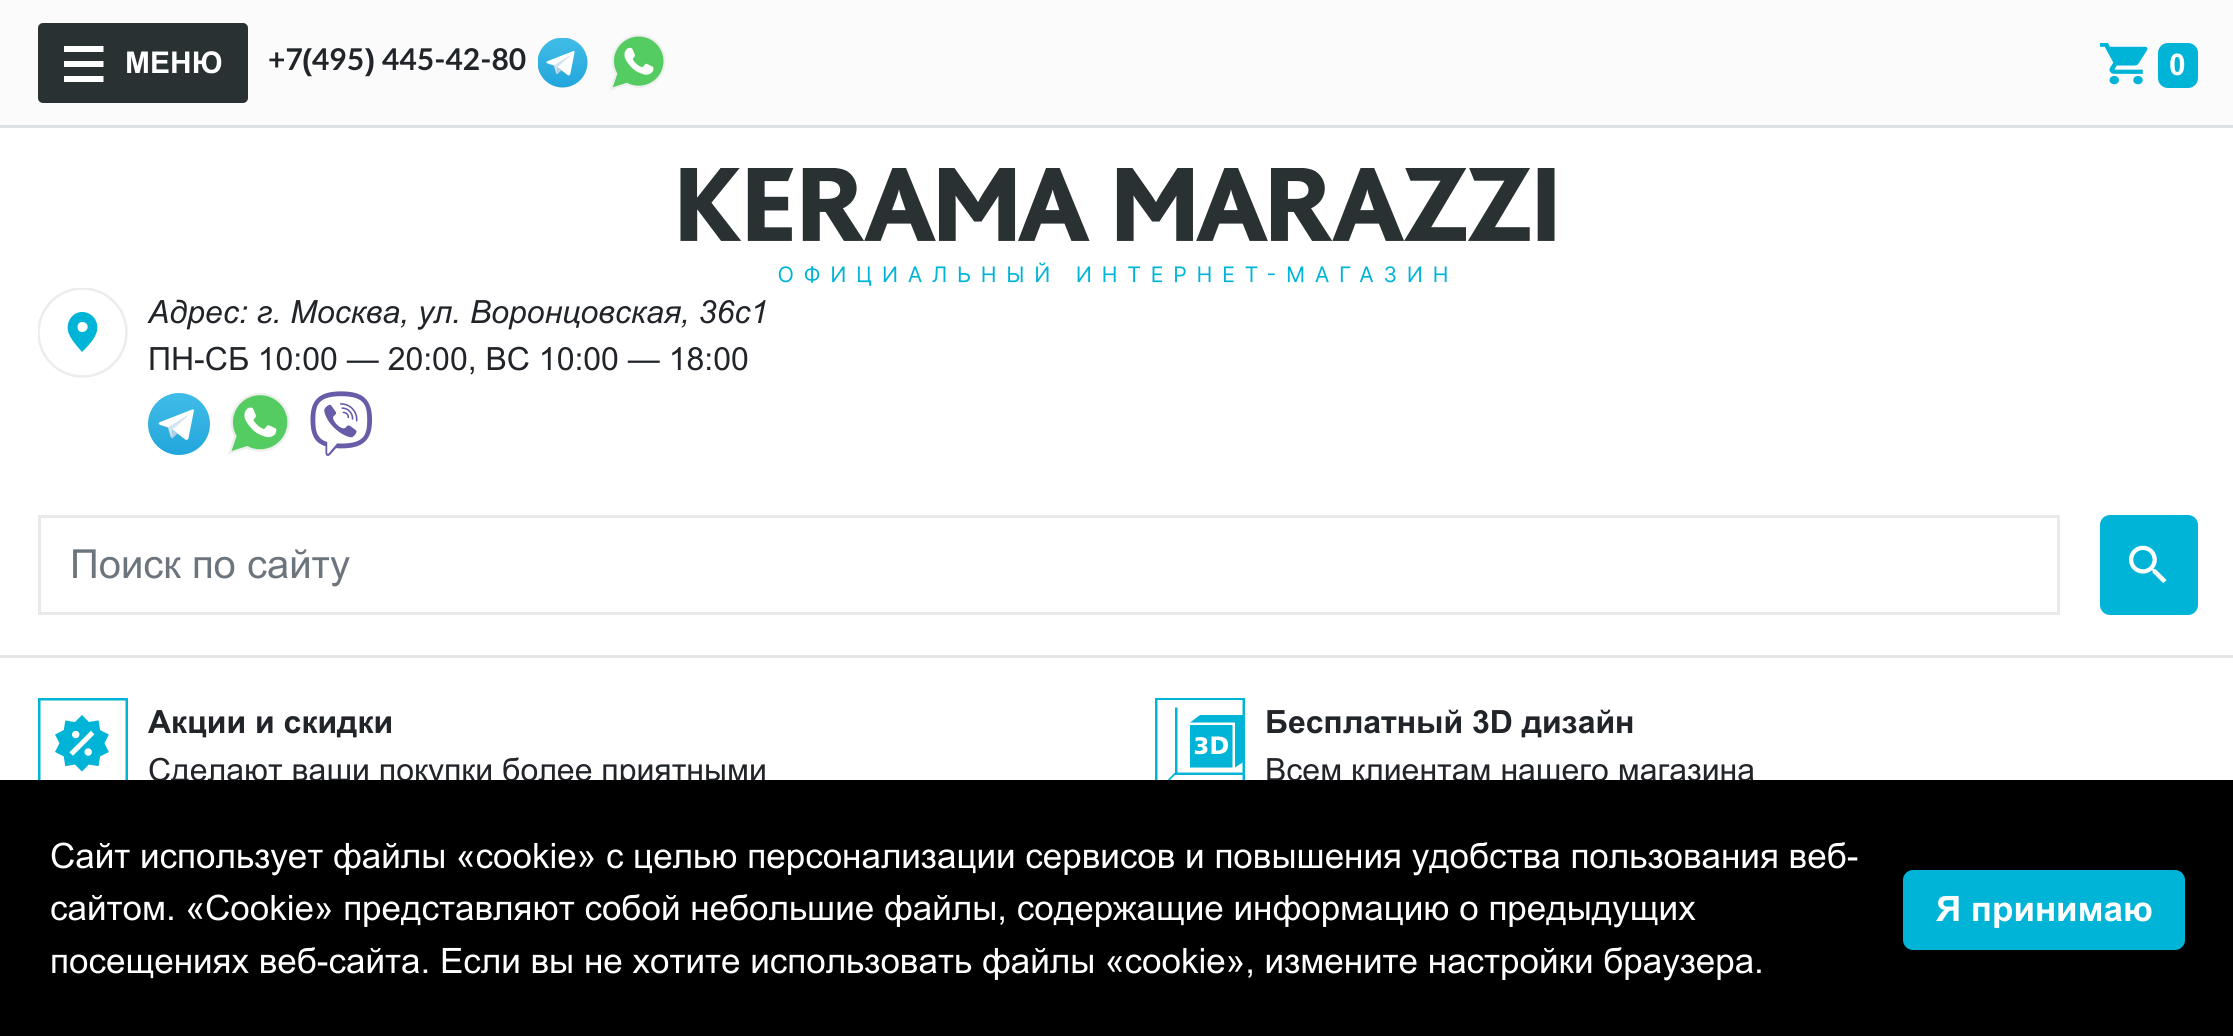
import math
import cairo



def rounded_rect(context, x, y, w, h, r):
    context.new_sub_path()
    for i, (u, v) in enumerate([(x + w - r, y + h - r), (x + r, y + h - r), (x + r, y + r), (x + w - r, y + r)]):
        context.arc(u, v, r, i * math.pi / 2, (i + 1) * math.pi / 2)
    context.close_path()


def draw_image(context, path, x, y, w, h):
    context.save()
    context.set_source_surface(cairo.ImageSurface.create_from_png(path), x, y)
    context.rectangle(x, y, w, h)
    context.fill()
    context.restore()


def draw(context):
    context.set_source_rgb(1, 1, 1)
    context.paint()
    context.set_source_rgb(251 / 255, 251 / 255, 251 / 255)
    context.rectangle(0, 0, 2233, 125)
    context.fill()
    context.set_source_rgb(222 / 255, 226 / 255, 230 / 255)
    context.rectangle(0, 125, 2233, 3)
    context.fill()
    context.set_source_rgb(41 / 255, 49 / 255, 50 / 255)
    rounded_rect(context, 38, 23, 210, 80, 5)
    context.fill()
    context.set_source_rgb(1, 1, 1)
    context.new_path()
    context.move_to(64, 46)
    context.line_to(103.5, 46)
    context.line_to(103.5, 52)
    context.line_to(64, 52)
    context.close_path()
    context.move_to(64, 61)
    context.line_to(103.5, 61)
    context.line_to(103.5, 67)
    context.line_to(64, 67)
    context.close_path()
    context.move_to(64, 76)
    context.line_to(103.5, 76)
    context.line_to(103.5, 82)
    context.line_to(64, 82)
    context.close_path()
    context.fill()
    draw_image(context, "images/1.png", 538, 38, 50, 50)
    draw_image(context, "images/2.png", 610, 34, 56, 56)
    draw_image(context, "images/3.png", 2100, 43, 48, 42)
    context.set_source_rgb(0, 180 / 255, 216 / 255)
    rounded_rect(context, 2158, 43, 40, 45, 10)
    context.fill()
    draw_image(context, "images/4.png", 680, 168, 875, 118)
    context.new_path()
    context.move_to(82, 332)
    context.curve_to(76, 332, 76, 322, 82, 322)
    context.curve_to(90, 322, 89, 332, 82, 332)
    context.close_path()
    context.move_to(82, 312)
    context.curve_to(73, 312, 66, 321, 68, 331)
    context.curve_to(70, 339, 77, 346, 82, 352)
    context.curve_to(88, 346, 95, 339, 97, 331)
    context.curve_to(99, 321, 92, 312, 82, 312)
    context.close_path()
    context.fill()
    context.save()
    context.rectangle(38, 288, 90, 90)
    context.clip()
    context.arc(82.5, 332.5, 44, 0, 2 * math.pi)
    context.set_source_rgb(236 / 255, 236 / 255, 236 / 255)
    context.set_line_width(2.5)
    context.stroke()
    context.restore()
    draw_image(context, "images/5.png", 148, 393, 62, 62)
    draw_image(context, "images/6.png", 228, 393, 62, 62)
    draw_image(context, "images/7.png", 310, 391, 62, 65)
    context.rectangle(39.5, 516.5, 2019, 97)
    context.set_source_rgb(233 / 255, 233 / 255, 233 / 255)
    context.set_line_width(3)
    context.stroke()
    context.set_source_rgb(0, 180 / 255, 216 / 255)
    rounded_rect(context, 2101.5, 516.5, 95, 97, 8.5)
    context.fill_preserve()
    context.stroke()
    draw_image(context, "images/8.png", 2128, 545, 39, 39)
    context.set_source_rgb(230 / 255, 230 / 255, 230 / 255)
    context.rectangle(0, 655, 2233, 3)
    context.fill()
    draw_image(context, "images/9.png", 38, 698, 90, 82)
    draw_image(context, "images/10.png", 1155, 698, 90, 82)
    context.select_font_face("Arial", cairo.FontSlant.NORMAL, cairo.FontWeight.BOLD)
    context.set_font_size(30)
    context.set_source_rgb(1, 1, 1)
    context.move_to(125, 73)
    context.show_text("МЕНЮ")
    context.select_font_face("Lato", cairo.FontSlant.NORMAL, cairo.FontWeight.BOLD)
    context.set_source_rgb(33 / 255, 37 / 255, 41 / 255)
    context.move_to(268, 70)
    context.show_text("+7")
    context.select_font_face("Liberation Sans", cairo.FontSlant.NORMAL, cairo.FontWeight.BOLD)
    context.move_to(302, 70)
    context.show_text("(")
    context.select_font_face("Lato", cairo.FontSlant.NORMAL, cairo.FontWeight.BOLD)
    context.move_to(312, 70)
    context.show_text("495")
    context.select_font_face("Liberation Sans", cairo.FontSlant.NORMAL, cairo.FontWeight.BOLD)
    context.move_to(365, 70)
    context.show_text(")")
    context.select_font_face("Lato", cairo.FontSlant.NORMAL, cairo.FontWeight.BOLD)
    context.move_to(382, 70)
    context.show_text("445-42-80")
    context.select_font_face("Arial", cairo.FontSlant.NORMAL, cairo.FontWeight.BOLD)
    context.set_source_rgb(1, 1, 1)
    context.move_to(2169, 75)
    context.show_text("0")
    context.select_font_face("Arial", cairo.FontSlant.ITALIC)
    context.set_font_size(32)
    context.set_source_rgb(33 / 255, 37 / 255, 41 / 255)
    context.move_to(148, 323)
    context.show_text("Адрес: г. Москва, ул. Воронцовская, 36с1")
    context.select_font_face("Arial")
    context.move_to(148, 370)
    context.show_text("ПН-СБ 10:00 — 20:00, ВС 10:00 — 18:00")
    context.set_font_size(40)
    context.set_source_rgb(108 / 255, 117 / 255, 125 / 255)
    context.move_to(70, 578)
    context.show_text("Поиск по сайту")
    context.select_font_face("Arial", cairo.FontSlant.NORMAL, cairo.FontWeight.BOLD)
    context.set_font_size(32)
    context.set_source_rgb(33 / 255, 37 / 255, 41 / 255)
    context.move_to(148, 733)
    context.show_text("Акции и скидки")
    context.select_font_face("Arial")
    context.move_to(148, 781)
    context.show_text("Сделают ваши покупки более приятными")
    context.select_font_face("Arial", cairo.FontSlant.NORMAL, cairo.FontWeight.BOLD)
    context.move_to(1265, 733)
    context.show_text("Бесплатный 3D дизайн")
    context.select_font_face("Arial")
    context.move_to(1265, 781)
    context.show_text("Всем клиентам нашего магазина")
    context.set_source_rgb(0, 0, 0)
    context.rectangle(0, 780, 2233, 256)
    context.fill()
    context.set_font_size(35)
    context.set_source_rgb(1, 1, 1)
    context.move_to(50, 868)
    context.show_text("Сайт использует файлы «cookie» с целью персонализации сервисов и повышения удобства пользования веб-")
    context.move_to(50, 920)
    context.show_text("сайтом. «Cookie» представляют собой небольшие файлы, содержащие информацию о предыдущих")
    context.move_to(50, 973)
    context.show_text("посещениях веб-сайта. Если вы не хотите использовать файлы «cookie», измените настройки браузера.")
    context.set_source_rgb(0, 180 / 255, 216 / 255)
    rounded_rect(context, 1904.5, 871.5, 279, 77, 8.5)
    context.fill_preserve()
    context.stroke()
    context.select_font_face("Arial", cairo.FontSlant.NORMAL, cairo.FontWeight.BOLD)
    context.set_source_rgb(1, 1, 1)
    context.move_to(1936, 921)
    context.show_text("Я принимаю")


surface = cairo.ImageSurface(cairo.Format.RGB24, 2233, 1036)
context = cairo.Context(surface)
options = cairo.FontOptions()
options.set_hint_metrics(cairo.HintMetrics.OFF)
options.set_hint_style(cairo.HintStyle.NONE)
context.set_font_options(options)
context.set_miter_limit(4)
draw(context)
surface.write_to_png("out.png")
